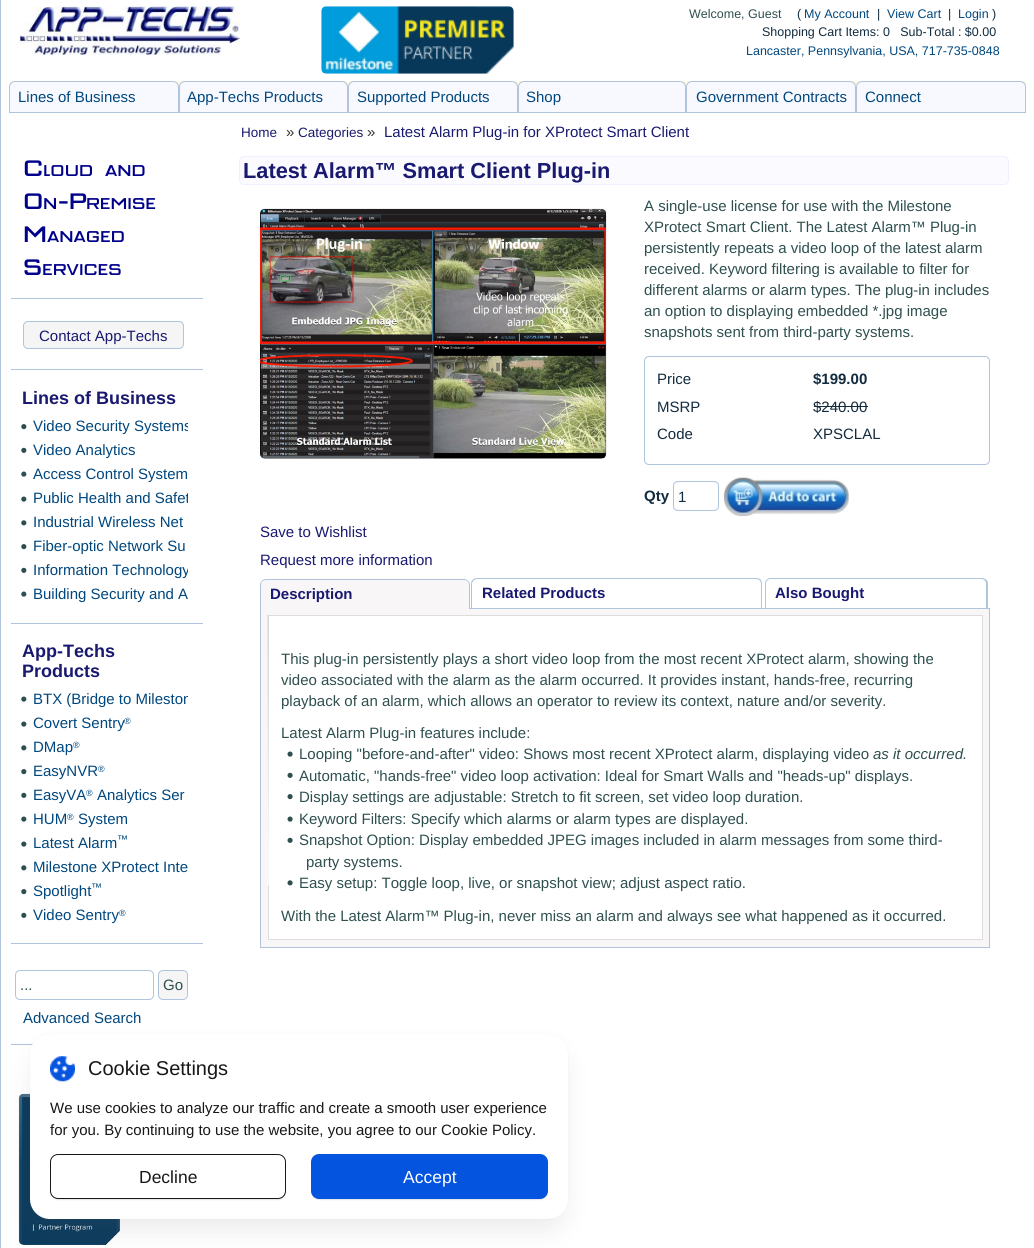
import math
import cairo



def rounded_rect(context, x, y, w, h, r):
    context.new_sub_path()
    for i, (u, v) in enumerate([(x + w - r, y + h - r), (x + r, y + h - r), (x + r, y + r), (x + w - r, y + r)]):
        context.arc(u, v, r, i * math.pi / 2, (i + 1) * math.pi / 2)
    context.close_path()


def draw_shadow(context, x, y, w, h, r, blur, alpha):
    context.push_group_with_content(cairo.Content.ALPHA)
    context.set_operator(cairo.Operator.SOURCE)
    for i in range(15, -16, -2):
        e = blur * i / 6
        if min(w, h) + 2 * e > 0:
            context.set_source_rgba(0, 0, 0, alpha * math.erfc((i - 1) / 8.5) / 2)
            rounded_rect(context, x - e, y - e, w + 2 * e, h + 2 * e, max(0, min(r + e + blur * .6, min(w, h) / 2 + e)))
            context.fill()
    context.mask(context.pop_group())


def draw_image(context, path, x, y, w, h):
    context.save()
    context.set_source_surface(cairo.ImageSurface.create_from_png(path), x, y)
    context.rectangle(x, y, w, h)
    context.fill()
    context.restore()


def draw(context):
    context.set_source_rgb(1, 1, 1)
    context.paint()
    context.set_source_rgb(176 / 255, 196 / 255, 222 / 255)
    context.rectangle(0, 0, 1, 1248)
    context.fill()
    draw_image(context, "images/1.png", 20, 6, 220, 49)
    draw_image(context, "images/2.png", 321, 6, 193, 68)
    context.set_source_rgb(250 / 255, 250 / 255, 210 / 255)
    rounded_rect(context, 9, 81, 170, 32, 2.5)
    context.fill()
    context.set_source_rgb(248 / 255, 248 / 255, 1)
    context.new_path()
    context.move_to(15, 81.5)
    context.line_to(173, 81.5)
    context.curve_to(176, 81.5, 178.5, 84, 178.5, 87)
    context.line_to(178.5, 112.5)
    context.line_to(9.5, 112.5)
    context.line_to(9.5, 87)
    context.curve_to(9.5, 84, 12, 81.5, 15, 81.5)
    context.close_path()
    context.fill_preserve()
    context.set_source_rgb(176 / 255, 196 / 255, 222 / 255)
    context.set_line_width(1)
    context.stroke()
    context.set_source_rgb(250 / 255, 250 / 255, 210 / 255)
    rounded_rect(context, 179, 81, 169, 32, 2.5)
    context.fill()
    context.set_source_rgb(248 / 255, 248 / 255, 1)
    context.new_path()
    context.move_to(185, 81.5)
    context.line_to(342, 81.5)
    context.curve_to(345, 81.5, 347.5, 84, 347.5, 87)
    context.line_to(347.5, 112.5)
    context.line_to(179.5, 112.5)
    context.line_to(179.5, 87)
    context.curve_to(179.5, 84, 182, 81.5, 185, 81.5)
    context.close_path()
    context.fill_preserve()
    context.set_source_rgb(176 / 255, 196 / 255, 222 / 255)
    context.stroke()
    context.set_source_rgb(250 / 255, 250 / 255, 210 / 255)
    rounded_rect(context, 348, 81, 170, 32, 2.5)
    context.fill()
    context.set_source_rgb(248 / 255, 248 / 255, 1)
    context.new_path()
    context.move_to(354, 81.5)
    context.line_to(512, 81.5)
    context.curve_to(515, 81.5, 517.5, 84, 517.5, 87)
    context.line_to(517.5, 112.5)
    context.line_to(348.5, 112.5)
    context.line_to(348.5, 87)
    context.curve_to(348.5, 84, 351, 81.5, 354, 81.5)
    context.close_path()
    context.fill_preserve()
    context.set_source_rgb(176 / 255, 196 / 255, 222 / 255)
    context.stroke()
    context.set_source_rgb(250 / 255, 250 / 255, 210 / 255)
    rounded_rect(context, 518, 81, 168, 32, 2.5)
    context.fill()
    context.set_source_rgb(248 / 255, 248 / 255, 1)
    context.new_path()
    context.move_to(524, 81.5)
    context.line_to(680, 81.5)
    context.curve_to(683, 81.5, 685.5, 84, 685.5, 87)
    context.line_to(685.5, 112.5)
    context.line_to(518.5, 112.5)
    context.line_to(518.5, 87)
    context.curve_to(518.5, 84, 521, 81.5, 524, 81.5)
    context.close_path()
    context.fill_preserve()
    context.set_source_rgb(176 / 255, 196 / 255, 222 / 255)
    context.stroke()
    context.set_source_rgb(250 / 255, 250 / 255, 210 / 255)
    rounded_rect(context, 686, 81, 170, 32, 2.5)
    context.fill()
    context.set_source_rgb(248 / 255, 248 / 255, 1)
    context.new_path()
    context.move_to(692, 81.5)
    context.line_to(850, 81.5)
    context.curve_to(853, 81.5, 855.5, 84, 855.5, 87)
    context.line_to(855.5, 112.5)
    context.line_to(686.5, 112.5)
    context.line_to(686.5, 87)
    context.curve_to(686.5, 84, 689, 81.5, 692, 81.5)
    context.close_path()
    context.fill_preserve()
    context.set_source_rgb(176 / 255, 196 / 255, 222 / 255)
    context.stroke()
    context.set_source_rgb(250 / 255, 250 / 255, 210 / 255)
    rounded_rect(context, 856, 81, 170, 32, 2.5)
    context.fill()
    context.set_source_rgb(248 / 255, 248 / 255, 1)
    context.new_path()
    context.move_to(862, 81.5)
    context.line_to(1020, 81.5)
    context.curve_to(1023, 81.5, 1025.5, 84, 1025.5, 87)
    context.line_to(1025.5, 112.5)
    context.line_to(856.5, 112.5)
    context.line_to(856.5, 87)
    context.curve_to(856.5, 84, 859, 81.5, 862, 81.5)
    context.close_path()
    context.fill_preserve()
    context.set_source_rgb(176 / 255, 196 / 255, 222 / 255)
    context.stroke()
    context.rectangle(11, 298, 192, 1)
    context.fill()
    context.rectangle(11, 369, 192, 1)
    context.fill()
    context.set_source_rgb(245 / 255, 245 / 255, 245 / 255)
    rounded_rect(context, 23.5, 321.5, 160, 27, 4.5)
    context.fill_preserve()
    context.set_source_rgb(176 / 255, 196 / 255, 222 / 255)
    context.stroke()
    context.rectangle(11, 623, 192, 1)
    context.fill()
    draw_image(context, "images/3.png", 21, 424, 6, 6)
    draw_image(context, "images/4.png", 21, 447, 6, 6)
    draw_image(context, "images/5.png", 21, 471, 6, 6)
    draw_image(context, "images/5.png", 21, 496, 6, 6)
    draw_image(context, "images/6.png", 21, 520, 6, 6)
    draw_image(context, "images/3.png", 21, 544, 6, 6)
    draw_image(context, "images/4.png", 21, 567, 6, 6)
    draw_image(context, "images/5.png", 21, 591, 6, 6)
    context.rectangle(11, 943, 192, 1)
    context.fill()
    draw_image(context, "images/5.png", 21, 696, 6, 6)
    draw_image(context, "images/5.png", 21, 721, 6, 6)
    draw_image(context, "images/6.png", 21, 745, 6, 6)
    draw_image(context, "images/3.png", 21, 769, 6, 6)
    draw_image(context, "images/4.png", 21, 792, 6, 6)
    draw_image(context, "images/5.png", 21, 816, 6, 6)
    draw_image(context, "images/5.png", 21, 841, 6, 6)
    draw_image(context, "images/6.png", 21, 865, 6, 6)
    draw_image(context, "images/3.png", 21, 889, 6, 6)
    draw_image(context, "images/4.png", 21, 912, 6, 6)
    context.rectangle(11, 1044, 22, 1)
    context.fill()
    rounded_rect(context, 15.5, 970.5, 138, 29, 4.5)
    context.stroke()
    context.set_source_rgb(245 / 255, 245 / 255, 245 / 255)
    rounded_rect(context, 158.5, 970.5, 29, 29, 4.5)
    context.fill_preserve()
    context.set_source_rgb(176 / 255, 196 / 255, 222 / 255)
    context.stroke()
    draw_image(context, "images/7.png", 18, 1093, 102, 152)
    context.set_source_rgb(250 / 255, 250 / 255, 1)
    rounded_rect(context, 239.5, 156.5, 769, 28, 4.5)
    context.fill_preserve()
    context.set_source_rgb(240 / 255, 240 / 255, 1)
    context.stroke()
    draw_image(context, "images/8.png", 260, 208, 347, 251)
    rounded_rect(context, 644.5, 356.5, 345, 108, 4.5)
    context.set_source_rgb(176 / 255, 196 / 255, 222 / 255)
    context.stroke()
    context.set_source_rgb(18 / 255, 43 / 255, 62 / 255)
    context.rectangle(814, 406, 54, 1)
    context.fill()
    rounded_rect(context, 673.5, 481.5, 45, 29, 4.5)
    context.set_source_rgb(176 / 255, 196 / 255, 222 / 255)
    context.stroke()
    draw_image(context, "images/9.png", 723, 477, 126, 40)
    context.set_source_rgb(248 / 255, 246 / 255, 247 / 255)
    context.rectangle(260.5, 608.5, 729, 339)
    context.fill_preserve()
    context.set_source_rgb(176 / 255, 196 / 255, 222 / 255)
    context.stroke()
    context.set_source_rgb(248 / 255, 246 / 255, 247 / 255)
    context.new_path()
    context.move_to(266, 579)
    context.line_to(464, 579)
    context.curve_to(467.5, 579, 470, 581.5, 470, 585)
    context.line_to(470, 609)
    context.line_to(260, 609)
    context.line_to(260, 585)
    context.curve_to(260, 581.5, 262.5, 579, 266, 579)
    context.close_path()
    context.fill()
    context.set_source_rgb(176 / 255, 196 / 255, 222 / 255)
    context.set_fill_rule(cairo.FillRule.EVEN_ODD)
    context.new_path()
    context.move_to(266, 579)
    context.line_to(464, 579)
    context.curve_to(467, 579, 470, 582, 470, 585)
    context.line_to(470, 609)
    context.line_to(260, 609)
    context.line_to(260, 585)
    context.curve_to(260, 582, 263, 579, 266, 579)
    context.close_path()
    context.move_to(266, 580)
    context.line_to(464, 580)
    context.curve_to(467, 580, 469, 582, 469, 585)
    context.line_to(469, 609)
    context.line_to(261, 609)
    context.line_to(261, 585)
    context.curve_to(261, 582, 263, 580, 266, 580)
    context.close_path()
    context.fill()
    context.new_path()
    context.move_to(478, 578)
    context.line_to(756, 578)
    context.curve_to(760, 578, 762, 580, 762, 584)
    context.line_to(762, 608)
    context.line_to(471, 608)
    context.line_to(471, 584)
    context.curve_to(471, 580, 474, 578, 478, 578)
    context.close_path()
    context.move_to(478, 579)
    context.line_to(756, 579)
    context.curve_to(759, 579, 761, 581, 761, 584)
    context.line_to(761, 608)
    context.line_to(472, 608)
    context.line_to(472, 584)
    context.curve_to(472, 581, 475, 579, 478, 579)
    context.close_path()
    context.fill()
    context.new_path()
    context.move_to(771, 578)
    context.line_to(981, 578)
    context.curve_to(985, 578, 988, 580, 988, 584)
    context.line_to(988, 608)
    context.line_to(765, 608)
    context.line_to(765, 584)
    context.curve_to(765, 580, 768, 578, 771, 578)
    context.close_path()
    context.move_to(771, 579)
    context.line_to(981, 579)
    context.curve_to(984, 579, 986, 581, 986, 584)
    context.line_to(986, 608)
    context.line_to(766, 608)
    context.line_to(766, 584)
    context.curve_to(766, 581, 768, 579, 771, 579)
    context.close_path()
    context.fill()
    context.set_source_rgb(1, 1, 1)
    context.rectangle(268.5, 615.5, 714, 324)
    context.fill_preserve()
    context.set_source_rgb(221 / 255, 221 / 255, 221 / 255)
    context.stroke()
    draw_image(context, "images/10.png", 267, 615, 2, 270)
    draw_image(context, "images/11.png", 287, 751, 6, 6)
    draw_image(context, "images/12.png", 287, 772, 6, 6)
    draw_image(context, "images/13.png", 287, 794, 6, 6)
    draw_image(context, "images/11.png", 287, 816, 6, 6)
    draw_image(context, "images/12.png", 287, 837, 6, 6)
    draw_image(context, "images/14.png", 287, 880, 6, 6)
    context.set_source_rgb(96 / 255, 96 / 255, 96 / 255)
    draw_shadow(context, 30, 1034, 538, 185, 20, 0.5, 0.1)
    draw_shadow(context, 38, 1056, 522, 170, 13, 15, 0.15)
    context.set_source_rgb(1, 1, 1)
    rounded_rect(context, 30, 1034, 538, 185, 20)
    context.fill()
    draw_image(context, "images/15.png", 50, 1056, 25, 26)
    context.set_source_rgb(34 / 255, 38 / 255, 50 / 255)
    draw_shadow(context, 53, 1159, 231, 40, 5, 1, 0.3)
    context.set_source_rgb(1, 1, 1)
    rounded_rect(context, 50.5, 1154.5, 235, 44, 7.5)
    context.fill_preserve()
    context.set_source_rgb(24 / 255, 24 / 255, 24 / 255)
    context.stroke()
    context.set_source_rgb(34 / 255, 38 / 255, 50 / 255)
    draw_shadow(context, 314, 1159, 231, 40, 5, 1, 0.3)
    context.set_source_rgb(5 / 255, 84 / 255, 223 / 255)
    rounded_rect(context, 311, 1154, 237, 45, 8)
    context.fill()
    context.select_font_face("Liberation Sans")
    context.set_font_size(12.5)
    context.set_source_rgb(47 / 255, 79 / 255, 79 / 255)
    context.move_to(689, 18)
    context.show_text("Welcome, Guest")
    context.set_source_rgb(18 / 255, 43 / 255, 62 / 255)
    context.move_to(797, 18)
    context.show_text("(")
    context.set_source_rgb(0, 71 / 255, 126 / 255)
    context.move_to(804, 18)
    context.show_text("My Account")
    context.set_source_rgb(18 / 255, 43 / 255, 62 / 255)
    context.move_to(877, 18)
    context.show_text("|")
    context.set_source_rgb(0, 71 / 255, 126 / 255)
    context.move_to(887, 18)
    context.show_text("View Cart")
    context.set_source_rgb(18 / 255, 43 / 255, 62 / 255)
    context.move_to(948, 18)
    context.show_text("|")
    context.set_source_rgb(0, 71 / 255, 126 / 255)
    context.move_to(958, 18)
    context.show_text("Login")
    context.set_source_rgb(18 / 255, 43 / 255, 62 / 255)
    context.move_to(992, 18)
    context.show_text(")")
    context.move_to(762, 36)
    context.show_text("Shopping Cart Items: 0   Sub-Total : $0.00")
    context.set_source_rgb(0, 71 / 255, 126 / 255)
    context.move_to(746, 55)
    context.show_text("Lancaster, Pennsylvania, USA, 717-735-0848")
    context.set_font_size(15)
    context.move_to(18, 102)
    context.show_text("Lines of Business")
    context.move_to(187, 102)
    context.show_text("App-Techs Products")
    context.move_to(357, 102)
    context.show_text("Supported Products")
    context.move_to(526, 102)
    context.show_text("Shop")
    context.move_to(696, 102)
    context.show_text("Government Contracts")
    context.move_to(865, 102)
    context.show_text("Connect")
    context.select_font_face("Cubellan")
    context.set_font_size(30)
    context.set_source_rgb(0, 0, 139 / 255)
    context.move_to(23, 176)
    context.show_text("C")
    context.set_font_size(21)
    context.move_to(43, 176)
    context.show_text("LOUD")
    context.move_to(105, 176)
    context.show_text("AND")
    context.set_font_size(30)
    context.move_to(23, 209)
    context.show_text("O")
    context.set_font_size(21)
    context.move_to(43, 209)
    context.show_text("N")
    context.set_font_size(30)
    context.move_to(58, 209)
    context.show_text("-P")
    context.set_font_size(21)
    context.move_to(86, 209)
    context.show_text("REMISE")
    context.set_font_size(30)
    context.move_to(23, 242)
    context.show_text("M")
    context.set_font_size(21)
    context.move_to(47, 242)
    context.show_text("ANAGED")
    context.set_font_size(30)
    context.move_to(23, 275)
    context.show_text("S")
    context.set_font_size(21)
    context.move_to(42, 275)
    context.show_text("ERVICES")
    context.select_font_face("Liberation Sans")
    context.set_font_size(15)
    context.set_source_rgb(25 / 255, 25 / 255, 112 / 255)
    context.move_to(39, 341)
    context.show_text("Contact App-Techs")
    context.select_font_face("Liberation Sans", cairo.FontSlant.NORMAL, cairo.FontWeight.BOLD)
    context.set_font_size(18)
    context.move_to(22, 404)
    context.show_text("Lines of Business")
    context.save()
    context.set_fill_rule(cairo.FillRule.WINDING)
    context.rectangle(15, 415, 173, 193)
    context.clip()
    context.select_font_face("Liberation Sans")
    context.set_font_size(15)
    context.set_source_rgb(0, 71 / 255, 126 / 255)
    context.move_to(33, 431)
    context.show_text("Video Security Systems")
    context.restore()
    context.select_font_face("Liberation Sans")
    context.set_font_size(15)
    context.set_source_rgb(0, 71 / 255, 126 / 255)
    context.move_to(33, 455)
    context.show_text("Video Analytics")
    context.move_to(33, 479)
    context.show_text("Access Control System")
    context.save()
    context.set_fill_rule(cairo.FillRule.WINDING)
    context.rectangle(15, 415, 173, 193)
    context.clip()
    context.move_to(33, 503)
    context.show_text("Public Health and Safet")
    context.restore()
    context.move_to(33, 527)
    context.show_text("Industrial Wireless Net")
    context.move_to(33, 551)
    context.show_text("Fiber-optic Network Su")
    context.save()
    context.set_fill_rule(cairo.FillRule.WINDING)
    context.rectangle(15, 415, 173, 193)
    context.clip()
    context.move_to(33, 575)
    context.show_text("Information Technology")
    context.restore()
    context.move_to(33, 599)
    context.show_text("Building Security and A")
    context.select_font_face("Liberation Sans", cairo.FontSlant.NORMAL, cairo.FontWeight.BOLD)
    context.set_font_size(18)
    context.set_source_rgb(25 / 255, 25 / 255, 112 / 255)
    context.move_to(22, 657)
    context.show_text("App-Techs")
    context.move_to(22, 677)
    context.show_text("Products")
    context.save()
    context.set_fill_rule(cairo.FillRule.WINDING)
    context.rectangle(15, 688, 173, 240)
    context.clip()
    context.select_font_face("Liberation Sans")
    context.set_font_size(15)
    context.set_source_rgb(0, 71 / 255, 126 / 255)
    context.move_to(33, 704)
    context.show_text("BTX (Bridge to Mileston")
    context.restore()
    context.select_font_face("Liberation Sans")
    context.set_font_size(15)
    context.set_source_rgb(0, 71 / 255, 126 / 255)
    context.move_to(33, 728)
    context.show_text("Covert Sentry")
    context.set_font_size(9)
    context.move_to(124, 724)
    context.show_text("®")
    context.set_font_size(15)
    context.move_to(33, 752)
    context.show_text("DMap")
    context.set_font_size(9)
    context.move_to(73, 748)
    context.show_text("®")
    context.set_font_size(15)
    context.move_to(33, 776)
    context.show_text("EasyNVR")
    context.set_font_size(9)
    context.move_to(98, 772)
    context.show_text("®")
    context.set_font_size(15)
    context.move_to(33, 800)
    context.show_text("EasyVA")
    context.set_font_size(9)
    context.move_to(86, 796)
    context.show_text("®")
    context.set_font_size(15)
    context.move_to(97, 800)
    context.show_text("Analytics Ser")
    context.move_to(33, 824)
    context.show_text("HUM")
    context.set_font_size(9)
    context.move_to(67, 820)
    context.show_text("®")
    context.set_font_size(15)
    context.move_to(78, 824)
    context.show_text("System")
    context.move_to(33, 848)
    context.show_text("Latest Alarm")
    context.set_font_size(11)
    context.move_to(117, 843)
    context.show_text("™")
    context.set_font_size(15)
    context.move_to(33, 872)
    context.show_text("Milestone XProtect Inte")
    context.move_to(33, 896)
    context.show_text("Spotlight")
    context.set_font_size(11)
    context.move_to(91, 891)
    context.show_text("™")
    context.set_font_size(15)
    context.move_to(33, 920)
    context.show_text("Video Sentry")
    context.set_font_size(9)
    context.move_to(119, 916)
    context.show_text("®")
    context.set_font_size(15)
    context.set_source_rgb(47 / 255, 79 / 255, 79 / 255)
    context.move_to(20, 990)
    context.show_text("...")
    context.move_to(163, 990)
    context.show_text("Go")
    context.set_source_rgb(0, 71 / 255, 126 / 255)
    context.move_to(23, 1023)
    context.show_text("Advanced Search")
    context.set_font_size(13.5)
    context.set_source_rgb(25 / 255, 25 / 255, 112 / 255)
    context.move_to(241, 137)
    context.show_text("Home")
    context.set_font_size(15)
    context.set_source_rgb(51 / 255, 51 / 255, 51 / 255)
    context.move_to(286, 137)
    context.show_text("»")
    context.set_font_size(13.5)
    context.set_source_rgb(25 / 255, 25 / 255, 112 / 255)
    context.move_to(298, 137)
    context.show_text("Categories")
    context.set_font_size(15)
    context.set_source_rgb(51 / 255, 51 / 255, 51 / 255)
    context.move_to(367, 137)
    context.show_text("»")
    context.set_source_rgb(25 / 255, 25 / 255, 112 / 255)
    context.move_to(384, 137)
    context.show_text("Latest Alarm Plug-in for XProtect Smart Client")
    context.select_font_face("Liberation Sans", cairo.FontSlant.NORMAL, cairo.FontWeight.BOLD)
    context.set_font_size(21.75)
    context.move_to(243, 178)
    context.show_text("Latest Alarm™ Smart Client Plug-in")
    context.select_font_face("Liberation Sans")
    context.set_font_size(15)
    context.set_source_rgb(47 / 255, 79 / 255, 79 / 255)
    context.move_to(644, 211)
    context.show_text("A single-use license for use with the Milestone")
    context.move_to(644, 232)
    context.show_text("XProtect Smart Client. The Latest Alarm™ Plug-in")
    context.move_to(644, 253)
    context.show_text("persistently repeats a video loop of the latest alarm")
    context.move_to(644, 274)
    context.show_text("received. Keyword filtering is available to filter for")
    context.move_to(644, 295)
    context.show_text("different alarms or alarm types. The plug-in includes")
    context.move_to(644, 316)
    context.show_text("an option to displaying embedded *.jpg image")
    context.move_to(644, 337)
    context.show_text("snapshots sent from third-party systems.")
    context.set_source_rgb(18 / 255, 43 / 255, 62 / 255)
    context.move_to(657, 384)
    context.show_text("Price")
    context.select_font_face("Liberation Sans", cairo.FontSlant.NORMAL, cairo.FontWeight.BOLD)
    context.move_to(813, 384)
    context.show_text("$199.00")
    context.select_font_face("Liberation Sans")
    context.move_to(657, 412)
    context.show_text("MSRP")
    context.move_to(813, 412)
    context.show_text("$240.00")
    context.move_to(657, 439)
    context.show_text("Code")
    context.move_to(813, 439)
    context.show_text("XPSCLAL")
    context.select_font_face("Liberation Sans", cairo.FontSlant.NORMAL, cairo.FontWeight.BOLD)
    context.move_to(644, 501)
    context.show_text("Qty")
    context.select_font_face("Liberation Sans")
    context.move_to(678, 502)
    context.show_text("1")
    context.set_source_rgb(25 / 255, 25 / 255, 112 / 255)
    context.move_to(260, 537)
    context.show_text("Save to Wishlist")
    context.move_to(260, 565)
    context.show_text("Request more information")
    context.select_font_face("Liberation Sans", cairo.FontSlant.NORMAL, cairo.FontWeight.BOLD)
    context.move_to(270, 599)
    context.show_text("Description")
    context.move_to(482, 598)
    context.show_text("Related Products")
    context.move_to(775, 598)
    context.show_text("Also Bought")
    context.select_font_face("Liberation Sans")
    context.set_source_rgb(47 / 255, 79 / 255, 79 / 255)
    context.move_to(281, 664)
    context.show_text("This plug-in persistently plays a short video loop from the most recent XProtect alarm, showing the")
    context.move_to(281, 685)
    context.show_text("video associated with the alarm as the alarm occurred. It provides instant, hands-free, recurring")
    context.move_to(281, 706)
    context.show_text("playback of an alarm, which allows an operator to review its context, nature and/or severity.")
    context.move_to(281, 738)
    context.show_text("Latest Alarm Plug-in features include:")
    context.move_to(299, 759)
    context.show_text("Looping \"before-and-after\" video: Shows most recent XProtect alarm, displaying video")
    context.select_font_face("Liberation Sans", cairo.FontSlant.ITALIC)
    context.move_to(873, 759)
    context.show_text("as it occurred.")
    context.select_font_face("Liberation Sans")
    context.move_to(299, 781)
    context.show_text("Automatic, \"hands-free\" video loop activation: Ideal for Smart Walls and \"heads-up\" displays.")
    context.move_to(299, 802)
    context.show_text("Display settings are adjustable: Stretch to fit screen, set video loop duration.")
    context.move_to(299, 824)
    context.show_text("Keyword Filters: Specify which alarms or alarm types are displayed.")
    context.move_to(299, 845)
    context.show_text("Snapshot Option: Display embedded JPEG images included in alarm messages from some third-")
    context.move_to(306, 867)
    context.show_text("party systems.")
    context.move_to(299, 888)
    context.show_text("Easy setup: Toggle loop, live, or snapshot view; adjust aspect ratio.")
    context.move_to(281, 921)
    context.show_text("With the Latest Alarm™ Plug-in, never miss an alarm and always see what happened as it occurred.")
    context.set_font_size(20)
    context.set_source_rgb(24 / 255, 24 / 255, 24 / 255)
    context.move_to(88, 1075)
    context.show_text("Cookie Settings")
    context.set_font_size(15)
    context.move_to(50, 1113)
    context.show_text("We use cookies to analyze our traffic and create a smooth user experience")
    context.move_to(50, 1135)
    context.show_text("for you. By continuing to use the website, you agree to our Cookie Policy.")
    context.set_font_size(17.5)
    context.move_to(139, 1183)
    context.show_text("Decline")
    context.set_source_rgb(1, 1, 1)
    context.move_to(403, 1183)
    context.show_text("Accept")


surface = cairo.ImageSurface(cairo.Format.RGB24, 1034, 1248)
context = cairo.Context(surface)
options = cairo.FontOptions()
options.set_hint_metrics(cairo.HintMetrics.OFF)
options.set_hint_style(cairo.HintStyle.NONE)
context.set_font_options(options)
context.set_miter_limit(4)
draw(context)
surface.write_to_png("out.png")
